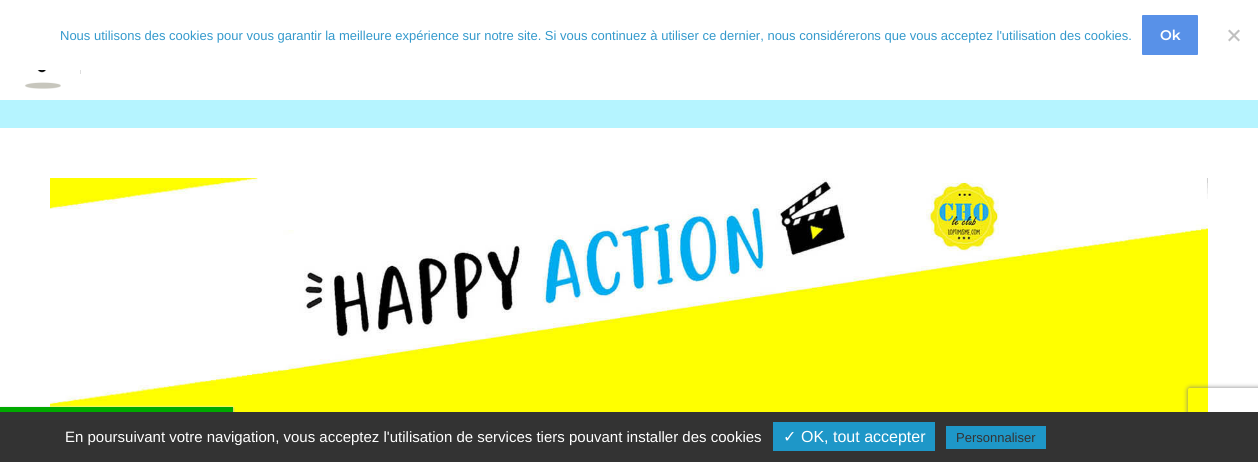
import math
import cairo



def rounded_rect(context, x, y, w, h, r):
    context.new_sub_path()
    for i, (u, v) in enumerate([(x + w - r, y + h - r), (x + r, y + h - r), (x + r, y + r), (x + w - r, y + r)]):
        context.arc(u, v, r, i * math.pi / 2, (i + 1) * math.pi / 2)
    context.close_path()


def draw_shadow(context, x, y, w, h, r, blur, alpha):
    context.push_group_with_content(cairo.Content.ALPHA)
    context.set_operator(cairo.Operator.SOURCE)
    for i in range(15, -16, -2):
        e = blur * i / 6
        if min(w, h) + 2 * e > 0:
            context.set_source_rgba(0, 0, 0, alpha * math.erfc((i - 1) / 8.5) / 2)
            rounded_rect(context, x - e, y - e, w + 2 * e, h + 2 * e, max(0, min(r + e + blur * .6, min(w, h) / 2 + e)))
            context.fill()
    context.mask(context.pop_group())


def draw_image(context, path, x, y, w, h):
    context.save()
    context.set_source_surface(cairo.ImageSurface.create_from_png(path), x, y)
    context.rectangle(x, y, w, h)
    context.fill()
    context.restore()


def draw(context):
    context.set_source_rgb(1, 1, 1)
    context.paint()
    context.set_source_rgb(88 / 255, 145 / 255, 232 / 255)
    rounded_rect(context, 1142, 15, 56, 40, 1)
    context.fill()
    context.set_source_rgb(192 / 255, 192 / 255, 192 / 255)
    context.new_path()
    context.move_to(1238.5, 29.5)
    context.line_to(1240, 31)
    context.line_to(1229.5, 41.5)
    context.line_to(1228, 40)
    context.close_path()
    context.fill()
    context.new_path()
    context.move_to(1228, 31)
    context.line_to(1229.5, 29.5)
    context.line_to(1240, 40)
    context.line_to(1238.5, 41.5)
    context.close_path()
    context.fill()
    draw_image(context, "images/1.png", 18, 70, 43, 19)
    context.set_source_rgb(222 / 255, 222 / 255, 222 / 255)
    context.rectangle(80, 70, 1, 4)
    context.fill()
    context.set_source_rgb(181 / 255, 244 / 255, 1)
    context.rectangle(0, 100, 1258, 28)
    context.fill()
    draw_image(context, "images/2.png", 50, 178, 1158, 234)
    context.set_source_rgb(85 / 255, 85 / 255, 85 / 255)
    draw_shadow(context, 0, 408, 233, 5, 0, 1, 1)
    context.set_source_rgb(1, 1, 1)
    draw_shadow(context, 0, 407, 233, 5, 0, 1, 1)
    context.set_source_rgb(0, 170 / 255, 0)
    context.rectangle(0, 407, 233, 5)
    context.fill()
    context.save()
    context.set_fill_rule(cairo.FillRule.EVEN_ODD)
    context.new_path()
    context.move_to(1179, 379)
    context.line_to(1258, 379)
    context.line_to(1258, 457)
    context.line_to(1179, 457)
    context.close_path()
    context.move_to(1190, 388)
    context.line_to(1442, 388)
    context.curve_to(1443, 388, 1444, 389, 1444, 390)
    context.line_to(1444, 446)
    context.curve_to(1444, 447, 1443, 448, 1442, 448)
    context.line_to(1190, 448)
    context.curve_to(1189, 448, 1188, 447, 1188, 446)
    context.line_to(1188, 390)
    context.curve_to(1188, 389, 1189, 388, 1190, 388)
    context.close_path()
    context.clip()
    context.set_source_rgb(128 / 255, 128 / 255, 128 / 255)
    draw_shadow(context, 1188, 388, 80, 60, 2, 2.5, 1)
    context.restore()
    context.set_source_rgb(51 / 255, 51 / 255, 51 / 255)
    context.rectangle(0, 412, 1258, 50)
    context.fill()
    context.set_source_rgb(30 / 255, 151 / 255, 200 / 255)
    context.rectangle(773, 422, 162, 29)
    context.fill()
    context.rectangle(946, 426, 100, 23)
    context.fill()
    context.select_font_face("Liberation Sans")
    context.set_font_size(13)
    context.set_source_rgb(51 / 255, 153 / 255, 204 / 255)
    context.move_to(60, 40)
    context.show_text("Nous utilisons des cookies pour vous garantir la meilleure expérience sur notre site. Si vous continuez à utiliser ce dernier, nous considérerons que vous acceptez l'utilisation des cookies.")
    context.select_font_face("Montserrat SemiBold")
    context.set_font_size(14)
    context.set_source_rgb(1, 1, 1)
    context.move_to(1160, 40)
    context.show_text("Ok")
    context.select_font_face("Liberation Sans")
    context.set_font_size(15)
    context.move_to(65, 442)
    context.show_text("En poursuivant votre navigation, vous acceptez l'utilisation de services tiers pouvant installer des cookies")
    context.select_font_face("DejaVu Sans")
    context.set_font_size(16)
    context.move_to(783, 442)
    context.show_text("✓")
    context.select_font_face("Liberation Sans")
    context.move_to(801, 442)
    context.show_text("OK, tout accepter")
    context.set_font_size(13)
    context.set_source_rgb(51 / 255, 51 / 255, 51 / 255)
    context.move_to(956, 442)
    context.show_text("Personnaliser")


surface = cairo.ImageSurface(cairo.Format.RGB24, 1258, 462)
context = cairo.Context(surface)
options = cairo.FontOptions()
options.set_hint_metrics(cairo.HintMetrics.OFF)
options.set_hint_style(cairo.HintStyle.NONE)
context.set_font_options(options)
context.set_miter_limit(4)
draw(context)
surface.write_to_png("out.png")
